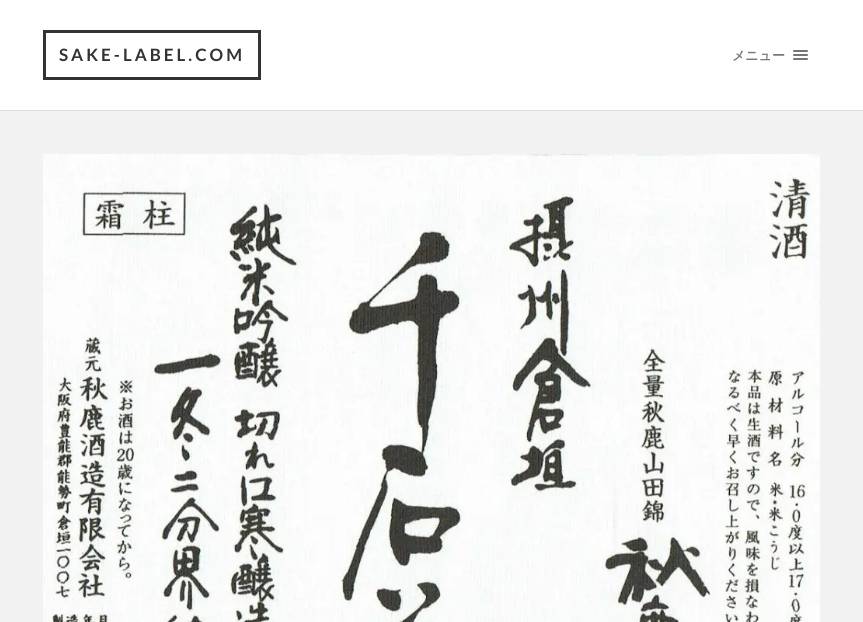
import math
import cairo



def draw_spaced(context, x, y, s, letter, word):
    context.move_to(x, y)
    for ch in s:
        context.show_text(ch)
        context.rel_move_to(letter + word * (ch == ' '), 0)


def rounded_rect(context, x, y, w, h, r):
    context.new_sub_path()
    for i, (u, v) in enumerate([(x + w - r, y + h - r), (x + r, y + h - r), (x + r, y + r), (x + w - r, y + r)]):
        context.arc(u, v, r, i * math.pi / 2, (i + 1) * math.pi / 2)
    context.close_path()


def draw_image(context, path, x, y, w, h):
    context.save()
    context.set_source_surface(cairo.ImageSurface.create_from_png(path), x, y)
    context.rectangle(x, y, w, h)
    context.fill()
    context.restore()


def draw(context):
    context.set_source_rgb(242 / 255, 242 / 255, 242 / 255)
    context.paint()
    context.set_source_rgb(1, 1, 1)
    context.rectangle(0, 0, 863, 110)
    context.fill()
    context.set_source_rgb(221 / 255, 221 / 255, 221 / 255)
    context.rectangle(0, 110, 863, 1)
    context.fill()
    context.rectangle(44.5, 31.5, 215, 47)
    context.set_source_rgb(51 / 255, 51 / 255, 51 / 255)
    context.set_line_width(3)
    context.stroke()
    context.set_source_rgb(118 / 255, 118 / 255, 118 / 255)
    rounded_rect(context, 793, 50, 15, 2, 1)
    context.fill()
    rounded_rect(context, 793, 54, 15, 2, 1)
    context.fill()
    rounded_rect(context, 793, 58, 15, 2, 1)
    context.fill()
    draw_image(context, "images/1.png", 43, 154, 777, 468)
    context.select_font_face("Lato", cairo.FontSlant.NORMAL, cairo.FontWeight.BOLD)
    context.set_font_size(17)
    context.set_source_rgb(51 / 255, 51 / 255, 51 / 255)
    draw_spaced(context, 59, 61, "SAKE-LABEL.COM", 3, 0)
    context.select_font_face("WenQuanYi Zen Hei", cairo.FontSlant.NORMAL, cairo.FontWeight.BOLD)
    context.set_font_size(13)
    context.set_source_rgb(118 / 255, 118 / 255, 118 / 255)
    context.move_to(732, 60)
    context.show_text("メニュー")


surface = cairo.ImageSurface(cairo.Format.RGB24, 863, 622)
context = cairo.Context(surface)
options = cairo.FontOptions()
options.set_hint_metrics(cairo.HintMetrics.OFF)
options.set_hint_style(cairo.HintStyle.NONE)
context.set_font_options(options)
context.set_miter_limit(4)
draw(context)
surface.write_to_png("out.png")
